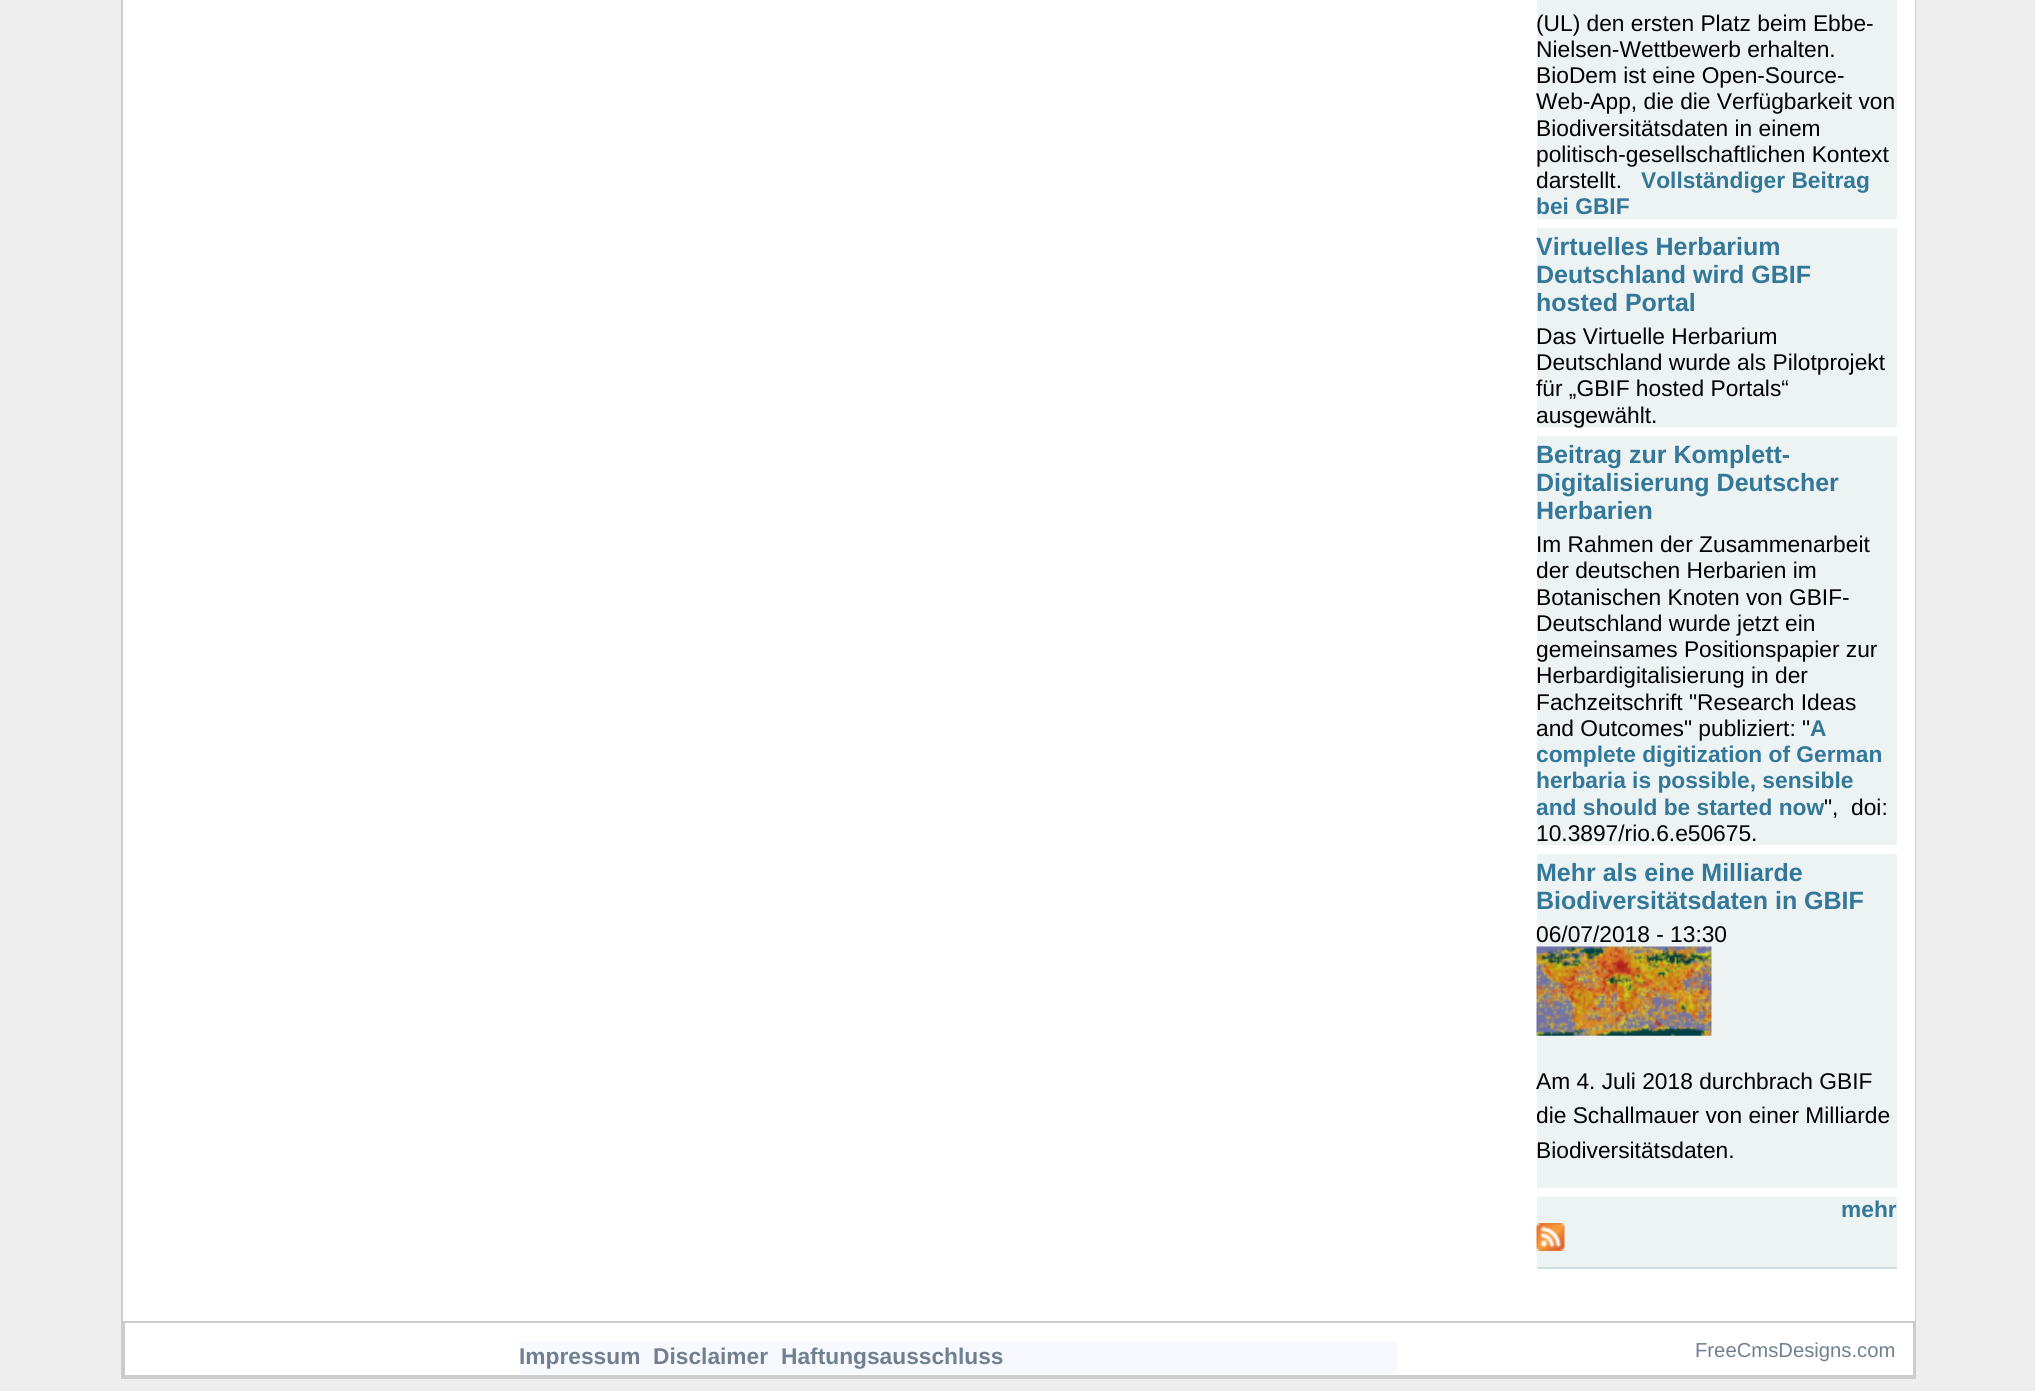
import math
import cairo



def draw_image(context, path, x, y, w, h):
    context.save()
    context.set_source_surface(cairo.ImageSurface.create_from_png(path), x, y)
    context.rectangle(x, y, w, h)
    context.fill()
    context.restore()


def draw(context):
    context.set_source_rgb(238 / 255, 238 / 255, 238 / 255)
    context.paint()
    context.set_source_rgb(1, 1, 1)
    context.rectangle(123, 0, 1790, 1375)
    context.fill()
    context.rectangle(122, -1, 1793, 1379)
    context.set_source_rgb(204 / 255, 204 / 255, 204 / 255)
    context.stroke()
    context.set_source_rgb(1, 1, 1)
    context.rectangle(1913, 0, 2, 1321)
    context.fill()
    context.set_source_rgb(237 / 255, 242 / 255, 242 / 255)
    context.rectangle(1537, 0, 360, 1267)
    context.fill()
    context.set_source_rgb(204 / 255, 221 / 255, 221 / 255)
    context.rectangle(1537, 1267, 360, 2)
    context.fill()
    context.set_source_rgb(1, 1, 1)
    context.rectangle(1537, 219, 360, 9)
    context.fill()
    context.rectangle(1537, 427, 360, 9)
    context.fill()
    context.rectangle(1537, 845, 360, 9)
    context.fill()
    context.rectangle(1537, 1188, 360, 9)
    context.fill()
    draw_image(context, "images/1.png", 1536, 946, 176, 90)
    draw_image(context, "images/2.png", 1536, 1223, 29, 28)
    context.rectangle(124, 1322, 1790, 54)
    context.set_source_rgb(204 / 255, 204 / 255, 204 / 255)
    context.stroke()
    context.set_source_rgb(248 / 255, 248 / 255, 1)
    context.rectangle(520, 1341, 877, 33)
    context.fill()
    context.select_font_face("Liberation Sans")
    context.set_font_size(22.75)
    context.set_source_rgb(0, 0, 0)
    context.move_to(1536, 31)
    context.show_text("(UL) den ersten Platz beim Ebbe-")
    context.move_to(1536, 57)
    context.show_text("Nielsen-Wettbewerb erhalten.")
    context.move_to(1536, 83)
    context.show_text("BioDem ist eine Open-Source-")
    context.move_to(1536, 109)
    context.show_text("Web-App, die die Verfügbarkeit von")
    context.move_to(1536, 136)
    context.show_text("Biodiversitätsdaten in einem")
    context.move_to(1536, 162)
    context.show_text("politisch-gesellschaftlichen Kontext")
    context.move_to(1536, 188)
    context.show_text("darstellt.")
    context.select_font_face("Liberation Sans", cairo.FontSlant.NORMAL, cairo.FontWeight.BOLD)
    context.set_source_rgb(51 / 255, 119 / 255, 153 / 255)
    context.move_to(1641, 188)
    context.show_text("Vollständiger Beitrag")
    context.move_to(1536, 214)
    context.show_text("bei GBIF")
    context.set_font_size(25)
    context.move_to(1536, 255)
    context.show_text("Virtuelles Herbarium")
    context.move_to(1536, 283)
    context.show_text("Deutschland wird GBIF")
    context.move_to(1536, 311)
    context.show_text("hosted Portal")
    context.select_font_face("Liberation Sans")
    context.set_font_size(22.75)
    context.set_source_rgb(0, 0, 0)
    context.move_to(1536, 344)
    context.show_text("Das Virtuelle Herbarium")
    context.move_to(1536, 370)
    context.show_text("Deutschland wurde als Pilotprojekt")
    context.move_to(1536, 396)
    context.show_text("für „GBIF hosted Portals“")
    context.move_to(1536, 423)
    context.show_text("ausgewählt.")
    context.select_font_face("Liberation Sans", cairo.FontSlant.NORMAL, cairo.FontWeight.BOLD)
    context.set_font_size(25)
    context.set_source_rgb(51 / 255, 119 / 255, 153 / 255)
    context.move_to(1536, 463)
    context.show_text("Beitrag zur Komplett-")
    context.move_to(1536, 491)
    context.show_text("Digitalisierung Deutscher")
    context.move_to(1536, 519)
    context.show_text("Herbarien")
    context.select_font_face("Liberation Sans")
    context.set_font_size(22.75)
    context.set_source_rgb(0, 0, 0)
    context.move_to(1536, 552)
    context.show_text("Im Rahmen der Zusammenarbeit")
    context.move_to(1536, 578)
    context.show_text("der deutschen Herbarien im")
    context.move_to(1536, 605)
    context.show_text("Botanischen Knoten von GBIF-")
    context.move_to(1536, 631)
    context.show_text("Deutschland wurde jetzt ein")
    context.move_to(1536, 657)
    context.show_text("gemeinsames Positionspapier zur")
    context.move_to(1536, 683)
    context.show_text("Herbardigitalisierung in der")
    context.move_to(1536, 710)
    context.show_text("Fachzeitschrift \"Research Ideas")
    context.move_to(1536, 736)
    context.show_text("and Outcomes\" publiziert: \"")
    context.select_font_face("Liberation Sans", cairo.FontSlant.NORMAL, cairo.FontWeight.BOLD)
    context.set_source_rgb(51 / 255, 119 / 255, 153 / 255)
    context.move_to(1810, 736)
    context.show_text("A")
    context.move_to(1536, 762)
    context.show_text("complete digitization of German")
    context.move_to(1536, 788)
    context.show_text("herbaria is possible, sensible")
    context.move_to(1536, 815)
    context.show_text("and should be started now")
    context.select_font_face("Liberation Sans")
    context.set_source_rgb(0, 0, 0)
    context.move_to(1824, 815)
    context.show_text("\",  doi:")
    context.move_to(1536, 841)
    context.show_text("10.3897/rio.6.e50675.")
    context.select_font_face("Liberation Sans", cairo.FontSlant.NORMAL, cairo.FontWeight.BOLD)
    context.set_font_size(25)
    context.set_source_rgb(51 / 255, 119 / 255, 153 / 255)
    context.move_to(1536, 881)
    context.show_text("Mehr als eine Milliarde")
    context.move_to(1536, 909)
    context.show_text("Biodiversitätsdaten in GBIF")
    context.select_font_face("Liberation Sans")
    context.set_font_size(22.75)
    context.set_source_rgb(0, 0, 0)
    context.move_to(1536, 942)
    context.show_text("06/07/2018 - 13:30")
    context.move_to(1536, 1089)
    context.show_text("Am 4. Juli 2018 durchbrach GBIF")
    context.move_to(1536, 1123)
    context.show_text("die Schallmauer von einer Milliarde")
    context.move_to(1536, 1158)
    context.show_text("Biodiversitätsdaten.")
    context.select_font_face("Liberation Sans", cairo.FontSlant.NORMAL, cairo.FontWeight.BOLD)
    context.set_source_rgb(51 / 255, 119 / 255, 153 / 255)
    context.move_to(1841, 1217)
    context.show_text("mehr")
    context.set_source_rgb(112 / 255, 128 / 255, 144 / 255)
    context.move_to(519, 1364)
    context.show_text("Impressum")
    context.move_to(653, 1364)
    context.show_text("Disclaimer")
    context.move_to(781, 1364)
    context.show_text("Haftungsausschluss")
    context.select_font_face("Liberation Sans")
    context.set_font_size(20.25)
    context.move_to(1695, 1357)
    context.show_text("FreeCmsDesigns.com")


surface = cairo.ImageSurface(cairo.Format.RGB24, 2035, 1391)
context = cairo.Context(surface)
options = cairo.FontOptions()
options.set_hint_metrics(cairo.HintMetrics.OFF)
options.set_hint_style(cairo.HintStyle.NONE)
context.set_font_options(options)
context.set_miter_limit(4)
draw(context)
surface.write_to_png("out.png")
